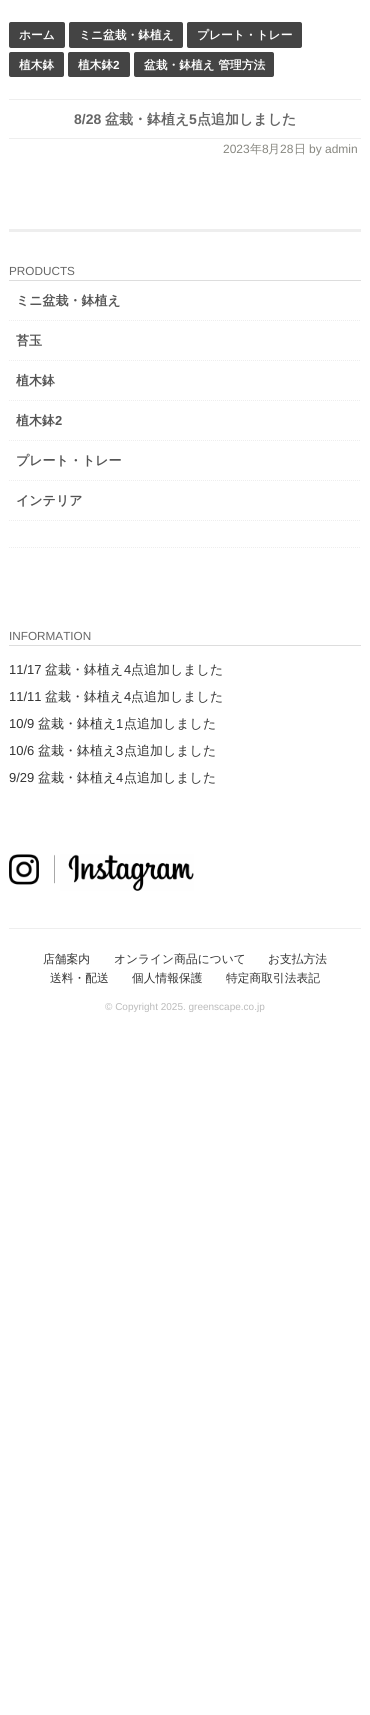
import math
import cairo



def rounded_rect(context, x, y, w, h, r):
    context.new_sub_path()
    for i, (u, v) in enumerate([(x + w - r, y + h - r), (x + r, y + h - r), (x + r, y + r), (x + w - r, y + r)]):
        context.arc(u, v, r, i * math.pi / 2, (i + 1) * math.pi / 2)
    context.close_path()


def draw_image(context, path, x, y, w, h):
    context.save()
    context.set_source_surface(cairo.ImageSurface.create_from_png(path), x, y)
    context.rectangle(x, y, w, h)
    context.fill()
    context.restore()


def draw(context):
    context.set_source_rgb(1, 1, 1)
    context.paint()
    context.set_source_rgb(68 / 255, 68 / 255, 68 / 255)
    rounded_rect(context, 9, 22, 56, 26, 2)
    context.fill()
    rounded_rect(context, 69, 22, 114, 26, 2)
    context.fill()
    rounded_rect(context, 187, 22, 115, 26, 2)
    context.fill()
    rounded_rect(context, 9, 52, 55, 25, 2)
    context.fill()
    rounded_rect(context, 68, 52, 62, 25, 2)
    context.fill()
    rounded_rect(context, 134, 52, 140, 25, 2)
    context.fill()
    context.set_source_rgb(238 / 255, 238 / 255, 238 / 255)
    context.rectangle(9, 99, 352, 1)
    context.fill()
    context.rectangle(9, 138, 352, 1)
    context.fill()
    context.rectangle(9, 229, 352, 3)
    context.fill()
    context.set_source_rgb(221 / 255, 221 / 255, 221 / 255)
    context.rectangle(9, 280, 352, 1)
    context.fill()
    context.new_path()
    context.move_to(9, 320.5)
    context.line_to(361, 320.5)
    context.set_source_rgb(238 / 255, 238 / 255, 238 / 255)
    context.set_line_width(1)
    context.set_dash([1, 1])
    context.stroke()
    context.new_path()
    context.move_to(9, 360.5)
    context.line_to(361, 360.5)
    context.stroke()
    context.new_path()
    context.move_to(9, 400.5)
    context.line_to(361, 400.5)
    context.stroke()
    context.new_path()
    context.move_to(9, 440.5)
    context.line_to(361, 440.5)
    context.stroke()
    context.new_path()
    context.move_to(9, 480.5)
    context.line_to(361, 480.5)
    context.stroke()
    context.new_path()
    context.move_to(9, 520.5)
    context.line_to(361, 520.5)
    context.stroke()
    context.new_path()
    context.move_to(9, 547.5)
    context.line_to(361, 547.5)
    context.stroke()
    context.set_source_rgb(221 / 255, 221 / 255, 221 / 255)
    context.rectangle(9, 645, 352, 1)
    context.fill()
    draw_image(context, "images/1.png", 9, 854, 185, 37)
    context.set_source_rgb(238 / 255, 238 / 255, 238 / 255)
    context.rectangle(9, 928, 352, 1)
    context.fill()
    context.select_font_face("WenQuanYi Zen Hei", cairo.FontSlant.NORMAL, cairo.FontWeight.BOLD)
    context.set_font_size(11.75)
    context.set_source_rgb(1, 1, 1)
    context.move_to(19, 39)
    context.show_text("ホーム")
    context.move_to(79, 39)
    context.show_text("ミニ盆栽・鉢植え")
    context.move_to(197, 39)
    context.show_text("プレート・トレー")
    context.move_to(19, 69)
    context.show_text("植木鉢")
    context.move_to(78, 69)
    context.show_text("植木鉢")
    context.select_font_face("Liberation Sans", cairo.FontSlant.NORMAL, cairo.FontWeight.BOLD)
    context.move_to(113, 69)
    context.show_text("2")
    context.select_font_face("WenQuanYi Zen Hei", cairo.FontSlant.NORMAL, cairo.FontWeight.BOLD)
    context.move_to(144, 69)
    context.show_text("盆栽・鉢植え 管理方法")
    context.select_font_face("Liberation Sans", cairo.FontSlant.NORMAL, cairo.FontWeight.BOLD)
    context.set_font_size(14)
    context.set_source_rgb(102 / 255, 102 / 255, 102 / 255)
    context.move_to(74, 124)
    context.show_text("8/28")
    context.select_font_face("WenQuanYi Zen Hei", cairo.FontSlant.NORMAL, cairo.FontWeight.BOLD)
    context.move_to(105, 124)
    context.show_text("盆栽・鉢植え")
    context.select_font_face("Liberation Sans", cairo.FontSlant.NORMAL, cairo.FontWeight.BOLD)
    context.move_to(189, 124)
    context.show_text("5")
    context.select_font_face("WenQuanYi Zen Hei", cairo.FontSlant.NORMAL, cairo.FontWeight.BOLD)
    context.move_to(197, 124)
    context.show_text("点追加しました")
    context.select_font_face("Liberation Sans")
    context.set_font_size(12)
    context.set_source_rgb(135 / 255, 135 / 255, 128 / 255)
    context.move_to(223, 153)
    context.show_text("2023")
    context.select_font_face("WenQuanYi Zen Hei Medium")
    context.move_to(250, 153)
    context.show_text("年")
    context.select_font_face("Liberation Sans")
    context.move_to(262, 153)
    context.show_text("8")
    context.select_font_face("WenQuanYi Zen Hei Medium")
    context.move_to(268, 153)
    context.show_text("月")
    context.select_font_face("Liberation Sans")
    context.move_to(280, 153)
    context.show_text("28")
    context.select_font_face("WenQuanYi Zen Hei Medium")
    context.move_to(294, 153)
    context.show_text("日")
    context.select_font_face("Liberation Sans")
    context.move_to(309, 153)
    context.show_text("by admin")
    context.set_font_size(11.75)
    context.set_source_rgb(102 / 255, 102 / 255, 102 / 255)
    context.move_to(9, 275)
    context.show_text("PRODUCTS")
    context.select_font_face("WenQuanYi Zen Hei", cairo.FontSlant.NORMAL, cairo.FontWeight.BOLD)
    context.set_font_size(13)
    context.set_source_rgb(85 / 255, 85 / 255, 85 / 255)
    context.move_to(16, 305)
    context.show_text("ミニ盆栽・鉢植え")
    context.move_to(16, 345)
    context.show_text("苔玉")
    context.move_to(16, 385)
    context.show_text("植木鉢")
    context.move_to(16, 425)
    context.show_text("植木鉢")
    context.select_font_face("Liberation Sans", cairo.FontSlant.NORMAL, cairo.FontWeight.BOLD)
    context.move_to(55, 425)
    context.show_text("2")
    context.select_font_face("WenQuanYi Zen Hei", cairo.FontSlant.NORMAL, cairo.FontWeight.BOLD)
    context.move_to(16, 465)
    context.show_text("プレート・トレー")
    context.move_to(16, 505)
    context.show_text("インテリア")
    context.select_font_face("Liberation Sans")
    context.set_font_size(11.75)
    context.set_source_rgb(102 / 255, 102 / 255, 102 / 255)
    context.move_to(9, 640)
    context.show_text("INFORMATION")
    context.set_font_size(13)
    context.set_source_rgb(51 / 255, 51 / 255, 51 / 255)
    context.move_to(9, 674)
    context.show_text("11/17")
    context.select_font_face("WenQuanYi Zen Hei Medium")
    context.move_to(45, 674)
    context.show_text("盆栽・鉢植え")
    context.select_font_face("Liberation Sans")
    context.move_to(124, 674)
    context.show_text("4")
    context.select_font_face("WenQuanYi Zen Hei Medium")
    context.move_to(131, 674)
    context.show_text("点追加しました")
    context.select_font_face("Liberation Sans")
    context.move_to(9, 701)
    context.show_text("11/11")
    context.select_font_face("WenQuanYi Zen Hei Medium")
    context.move_to(45, 701)
    context.show_text("盆栽・鉢植え")
    context.select_font_face("Liberation Sans")
    context.move_to(124, 701)
    context.show_text("4")
    context.select_font_face("WenQuanYi Zen Hei Medium")
    context.move_to(131, 701)
    context.show_text("点追加しました")
    context.select_font_face("Liberation Sans")
    context.move_to(9, 728)
    context.show_text("10/9")
    context.select_font_face("WenQuanYi Zen Hei Medium")
    context.move_to(38, 728)
    context.show_text("盆栽・鉢植え")
    context.select_font_face("Liberation Sans")
    context.move_to(116, 728)
    context.show_text("1")
    context.select_font_face("WenQuanYi Zen Hei Medium")
    context.move_to(124, 728)
    context.show_text("点追加しました")
    context.select_font_face("Liberation Sans")
    context.move_to(9, 755)
    context.show_text("10/6")
    context.select_font_face("WenQuanYi Zen Hei Medium")
    context.move_to(38, 755)
    context.show_text("盆栽・鉢植え")
    context.select_font_face("Liberation Sans")
    context.move_to(116, 755)
    context.show_text("3")
    context.select_font_face("WenQuanYi Zen Hei Medium")
    context.move_to(124, 755)
    context.show_text("点追加しました")
    context.select_font_face("Liberation Sans")
    context.move_to(9, 782)
    context.show_text("9/29")
    context.select_font_face("WenQuanYi Zen Hei Medium")
    context.move_to(38, 782)
    context.show_text("盆栽・鉢植え")
    context.select_font_face("Liberation Sans")
    context.move_to(116, 782)
    context.show_text("4")
    context.select_font_face("WenQuanYi Zen Hei Medium")
    context.move_to(124, 782)
    context.show_text("点追加しました")
    context.set_font_size(11.75)
    context.move_to(43, 963)
    context.show_text("店舗案内")
    context.move_to(114, 963)
    context.show_text("オンライン商品について")
    context.move_to(268, 963)
    context.show_text("お支払方法")
    context.move_to(50, 982)
    context.show_text("送料・配送")
    context.move_to(132, 982)
    context.show_text("個人情報保護")
    context.move_to(226, 982)
    context.show_text("特定商取引法表記")
    context.select_font_face("Liberation Sans")
    context.set_font_size(10)
    context.set_source_rgb(187 / 255, 187 / 255, 187 / 255)
    context.move_to(105, 1010)
    context.show_text("© Copyright 2025. greenscape.co.jp")


surface = cairo.ImageSurface(cairo.Format.RGB24, 370, 1715)
context = cairo.Context(surface)
options = cairo.FontOptions()
options.set_hint_metrics(cairo.HintMetrics.OFF)
options.set_hint_style(cairo.HintStyle.NONE)
context.set_font_options(options)
context.set_miter_limit(4)
draw(context)
surface.write_to_png("out.png")
